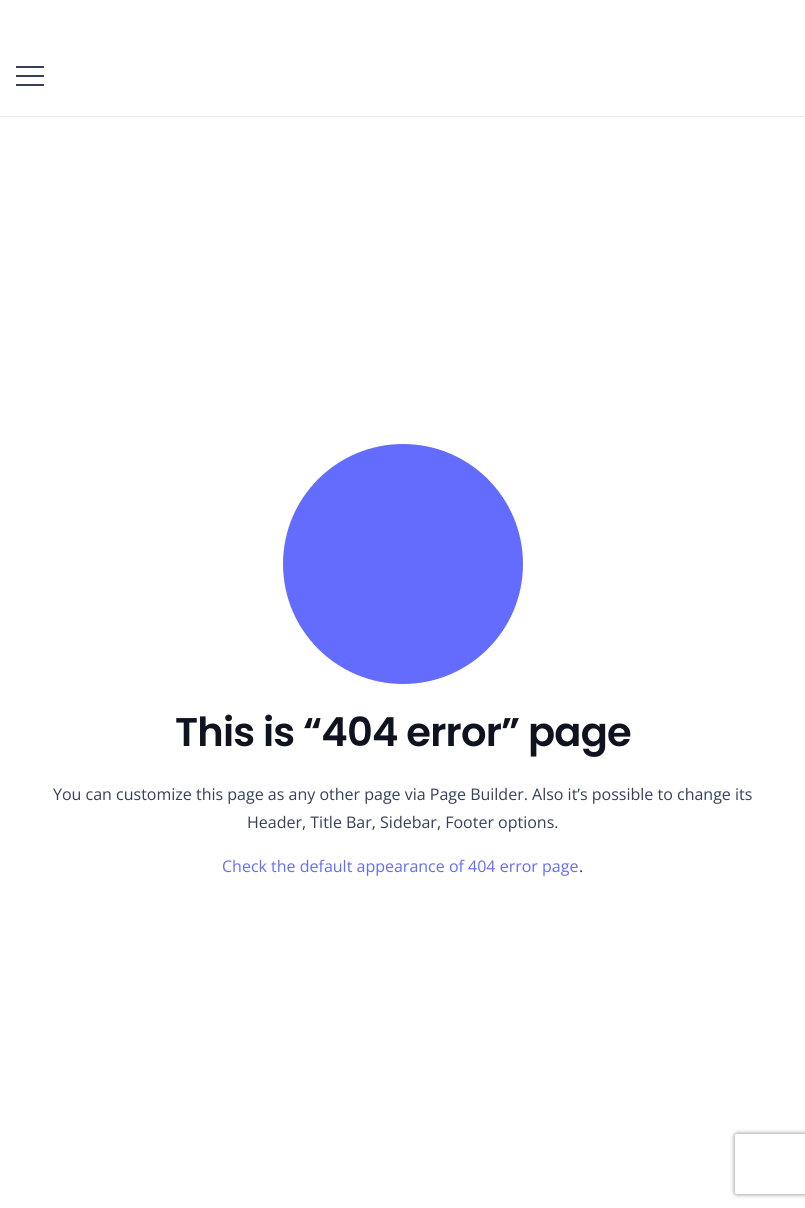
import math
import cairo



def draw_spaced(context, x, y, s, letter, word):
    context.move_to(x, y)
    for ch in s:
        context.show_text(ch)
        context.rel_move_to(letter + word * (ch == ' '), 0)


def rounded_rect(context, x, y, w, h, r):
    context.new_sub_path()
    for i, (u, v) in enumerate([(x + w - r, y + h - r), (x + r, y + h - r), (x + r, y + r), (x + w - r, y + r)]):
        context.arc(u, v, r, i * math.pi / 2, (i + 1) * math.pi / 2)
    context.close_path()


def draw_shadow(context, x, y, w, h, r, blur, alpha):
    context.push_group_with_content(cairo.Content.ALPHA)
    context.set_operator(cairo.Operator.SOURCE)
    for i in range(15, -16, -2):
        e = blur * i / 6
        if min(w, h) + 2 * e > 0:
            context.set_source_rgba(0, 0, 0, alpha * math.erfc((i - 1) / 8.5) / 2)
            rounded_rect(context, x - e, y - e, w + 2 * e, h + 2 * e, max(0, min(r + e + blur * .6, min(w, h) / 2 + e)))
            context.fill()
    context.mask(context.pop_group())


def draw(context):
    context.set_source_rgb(1, 1, 1)
    context.paint()
    context.set_source_rgb(235 / 255, 235 / 255, 235 / 255)
    context.rectangle(0, 116, 805, 1)
    context.fill()
    context.set_source_rgb(53 / 255, 65 / 255, 91 / 255)
    context.rectangle(16, 75, 28, 2)
    context.fill()
    context.rectangle(16, 66, 28, 2)
    context.fill()
    context.rectangle(16, 84, 28, 2)
    context.fill()
    context.set_source_rgb(100 / 255, 108 / 255, 253 / 255)
    context.arc(403, 564, 120, 0, 2 * math.pi)
    context.fill()
    context.save()
    context.set_fill_rule(cairo.FillRule.EVEN_ODD)
    context.new_path()
    context.move_to(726, 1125)
    context.line_to(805, 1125)
    context.line_to(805, 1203)
    context.line_to(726, 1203)
    context.close_path()
    context.move_to(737, 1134)
    context.line_to(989, 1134)
    context.curve_to(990, 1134, 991, 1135, 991, 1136)
    context.line_to(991, 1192)
    context.curve_to(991, 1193, 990, 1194, 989, 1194)
    context.line_to(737, 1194)
    context.curve_to(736, 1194, 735, 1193, 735, 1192)
    context.line_to(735, 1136)
    context.curve_to(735, 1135, 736, 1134, 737, 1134)
    context.close_path()
    context.clip()
    context.set_source_rgb(128 / 255, 128 / 255, 128 / 255)
    draw_shadow(context, 735, 1134, 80, 60, 2, 2.5, 1)
    context.restore()
    context.select_font_face("Poppins SemiBold")
    context.set_font_size(40)
    context.set_source_rgb(15 / 255, 19 / 255, 31 / 255)
    draw_spaced(context, 175, 746, "This is “404 error” page", -0.8, 0)
    context.select_font_face("Open Sans")
    context.set_font_size(16)
    context.set_source_rgb(53 / 255, 65 / 255, 91 / 255)
    context.move_to(53, 800)
    context.show_text("You can customize this page as any other page via Page Builder. Also it’s possible to change its")
    context.move_to(247, 828)
    context.show_text("Header, Title Bar, Sidebar, Footer options.")
    context.set_source_rgb(100 / 255, 108 / 255, 253 / 255)
    context.move_to(222, 872)
    context.show_text("Check the default appearance of 404 error page")
    context.set_source_rgb(53 / 255, 65 / 255, 91 / 255)
    context.move_to(579, 872)
    context.show_text(".")


surface = cairo.ImageSurface(cairo.Format.RGB24, 805, 1208)
context = cairo.Context(surface)
options = cairo.FontOptions()
options.set_hint_metrics(cairo.HintMetrics.OFF)
options.set_hint_style(cairo.HintStyle.NONE)
context.set_font_options(options)
context.set_miter_limit(4)
draw(context)
surface.write_to_png("out.png")
